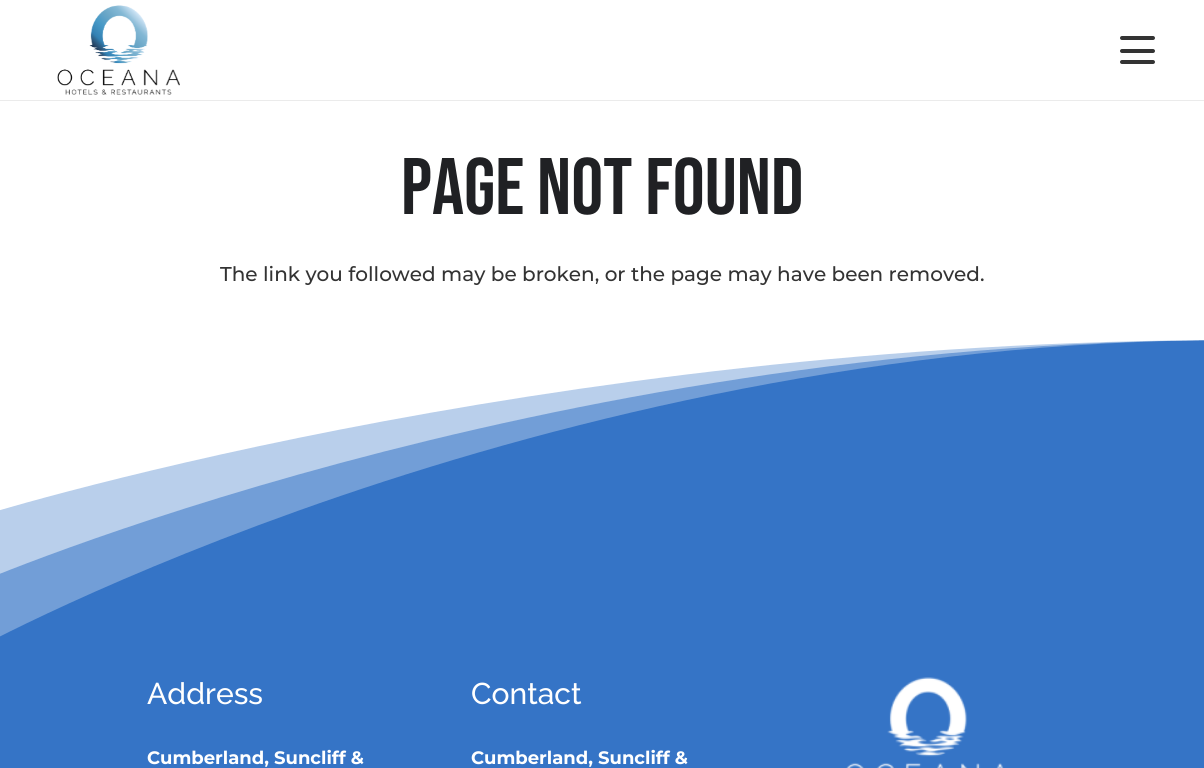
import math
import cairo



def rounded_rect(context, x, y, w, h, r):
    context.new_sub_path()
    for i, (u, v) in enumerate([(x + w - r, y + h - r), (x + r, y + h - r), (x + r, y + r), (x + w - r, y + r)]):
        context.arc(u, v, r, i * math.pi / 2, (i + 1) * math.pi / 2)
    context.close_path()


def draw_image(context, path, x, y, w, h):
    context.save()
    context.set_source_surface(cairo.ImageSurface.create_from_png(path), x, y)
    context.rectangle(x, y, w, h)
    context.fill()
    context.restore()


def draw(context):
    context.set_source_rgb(1, 1, 1)
    context.paint()
    context.set_source_rgb(235 / 255, 235 / 255, 235 / 255)
    context.rectangle(0, 100, 1204, 1)
    context.fill()
    draw_image(context, "images/1.png", 57, 5, 123, 90)
    context.set_source_rgb(51 / 255, 51 / 255, 51 / 255)
    rounded_rect(context, 1120, 49, 35, 4, 2)
    context.fill()
    rounded_rect(context, 1120, 36, 35, 4, 2)
    context.fill()
    rounded_rect(context, 1120, 60, 35, 4, 2)
    context.fill()
    context.set_source_rgb(53 / 255, 116 / 255, 198 / 255)
    context.rectangle(0, 340, 1204, 428)
    context.fill()
    context.set_source_rgb(114 / 255, 158 / 255, 215 / 255)
    context.new_path()
    context.move_to(-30, 340)
    context.line_to(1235, 340)
    context.curve_to(536, 340, -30, 652, -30, 652)
    context.close_path()
    context.fill()
    context.set_source_rgba(1, 1, 1, 0.5)
    context.new_path()
    context.move_to(-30, 340)
    context.line_to(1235, 340)
    context.curve_to(536, 340, -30, 586, -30, 586)
    context.close_path()
    context.fill()
    context.set_source_rgb(1, 1, 1)
    context.new_path()
    context.move_to(-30, 340)
    context.line_to(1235, 340)
    context.curve_to(536, 340, -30, 519, -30, 519)
    context.close_path()
    context.fill()
    draw_image(context, "images/2.png", 846, 677, 158, 91)
    context.select_font_face("Bebas Neue")
    context.set_font_size(80)
    context.set_source_rgb(32 / 255, 33 / 255, 36 / 255)
    context.move_to(401, 214)
    context.show_text("Page not found")
    context.select_font_face("Montserrat Medium")
    context.set_font_size(20)
    context.set_source_rgb(51 / 255, 51 / 255, 51 / 255)
    context.move_to(220, 281)
    context.show_text("The link you followed may be broken, or the page may have been removed.")
    context.select_font_face("Raleway Medium")
    context.set_font_size(30)
    context.set_source_rgb(1, 1, 1)
    context.move_to(147, 704)
    context.show_text("Address")
    context.select_font_face("Montserrat", cairo.FontSlant.NORMAL, cairo.FontWeight.BOLD)
    context.set_font_size(18)
    context.move_to(147, 764)
    context.show_text("Cumberland, Suncliff &")
    context.select_font_face("Raleway Medium")
    context.set_font_size(30)
    context.move_to(471, 704)
    context.show_text("Contact")
    context.select_font_face("Montserrat", cairo.FontSlant.NORMAL, cairo.FontWeight.BOLD)
    context.set_font_size(18)
    context.move_to(471, 764)
    context.show_text("Cumberland, Suncliff &")


surface = cairo.ImageSurface(cairo.Format.RGB24, 1204, 768)
context = cairo.Context(surface)
options = cairo.FontOptions()
options.set_hint_metrics(cairo.HintMetrics.OFF)
options.set_hint_style(cairo.HintStyle.NONE)
context.set_font_options(options)
context.set_miter_limit(4)
draw(context)
surface.write_to_png("out.png")
